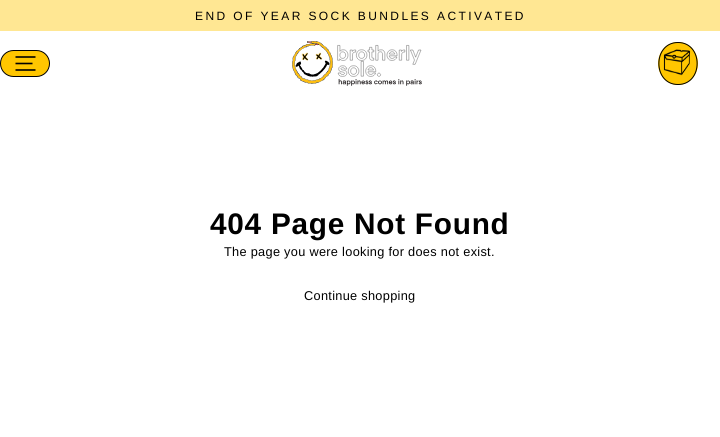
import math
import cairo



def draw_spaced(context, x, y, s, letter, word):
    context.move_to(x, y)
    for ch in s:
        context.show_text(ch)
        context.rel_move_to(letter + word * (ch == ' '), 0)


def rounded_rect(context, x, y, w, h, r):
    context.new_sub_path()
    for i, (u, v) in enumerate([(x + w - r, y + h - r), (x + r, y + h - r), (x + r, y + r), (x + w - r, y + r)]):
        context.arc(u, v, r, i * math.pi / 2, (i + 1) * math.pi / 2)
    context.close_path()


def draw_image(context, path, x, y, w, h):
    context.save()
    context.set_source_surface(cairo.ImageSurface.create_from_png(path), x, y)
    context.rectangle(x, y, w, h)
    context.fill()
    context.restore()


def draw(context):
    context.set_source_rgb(1, 1, 1)
    context.paint()
    context.set_source_rgb(1, 231 / 255, 147 / 255)
    context.rectangle(0, 0, 720, 31)
    context.fill()
    context.set_source_rgb(1, 198 / 255, 0)
    rounded_rect(context, 0.5, 50.5, 49, 26, 13)
    context.fill_preserve()
    context.set_source_rgb(0, 0, 0)
    context.set_line_width(1)
    context.stroke()
    context.new_path()
    context.move_to(15.5, 57)
    context.line_to(35.5, 57)
    context.move_to(15.5, 63.5)
    context.line_to(32.5, 63.5)
    context.move_to(15.5, 70)
    context.line_to(35.5, 70)
    context.set_line_width(1.6)
    context.stroke()
    draw_image(context, "images/1.png", 292, 41, 130, 45)
    context.set_source_rgb(1, 198 / 255, 0)
    context.new_path()
    context.move_to(678, 42)
    context.curve_to(689, 42, 698, 51.5, 698, 63.5)
    context.curve_to(698, 75.5, 689, 85, 678, 85)
    context.curve_to(667, 85, 658, 75.5, 658, 63.5)
    context.curve_to(658, 51.5, 667, 42, 678, 42)
    context.close_path()
    context.fill()
    context.new_path()
    context.move_to(678, 42.5)
    context.curve_to(703.5, 42.5, 703.5, 84.5, 678, 84.5)
    context.curve_to(652.5, 84.5, 652.5, 42.5, 678, 42.5)
    context.close_path()
    context.set_source_rgb(0, 0, 0)
    context.set_line_width(1)
    context.stroke()
    draw_image(context, "images/2.png", 663, 49, 28, 27)
    context.select_font_face("Liberation Sans")
    context.set_font_size(12)
    draw_spaced(context, 195, 20, "END OF YEAR SOCK BUNDLES ACTIVATED", 2.4, 0)
    context.select_font_face("Liberation Sans", cairo.FontSlant.NORMAL, cairo.FontWeight.BOLD)
    context.set_font_size(29.75)
    draw_spaced(context, 210, 234, "404 Page Not Found", 0.75, 0)
    context.select_font_face("Liberation Sans")
    context.set_font_size(12.75)
    draw_spaced(context, 224, 256, "The page you were looking for does not exist.", 0.3, 0)
    draw_spaced(context, 304, 300, "Continue shopping", 0.3, 0)


surface = cairo.ImageSurface(cairo.Format.RGB24, 720, 437)
context = cairo.Context(surface)
options = cairo.FontOptions()
options.set_hint_metrics(cairo.HintMetrics.OFF)
options.set_hint_style(cairo.HintStyle.NONE)
context.set_font_options(options)
context.set_miter_limit(4)
draw(context)
surface.write_to_png("out.png")
